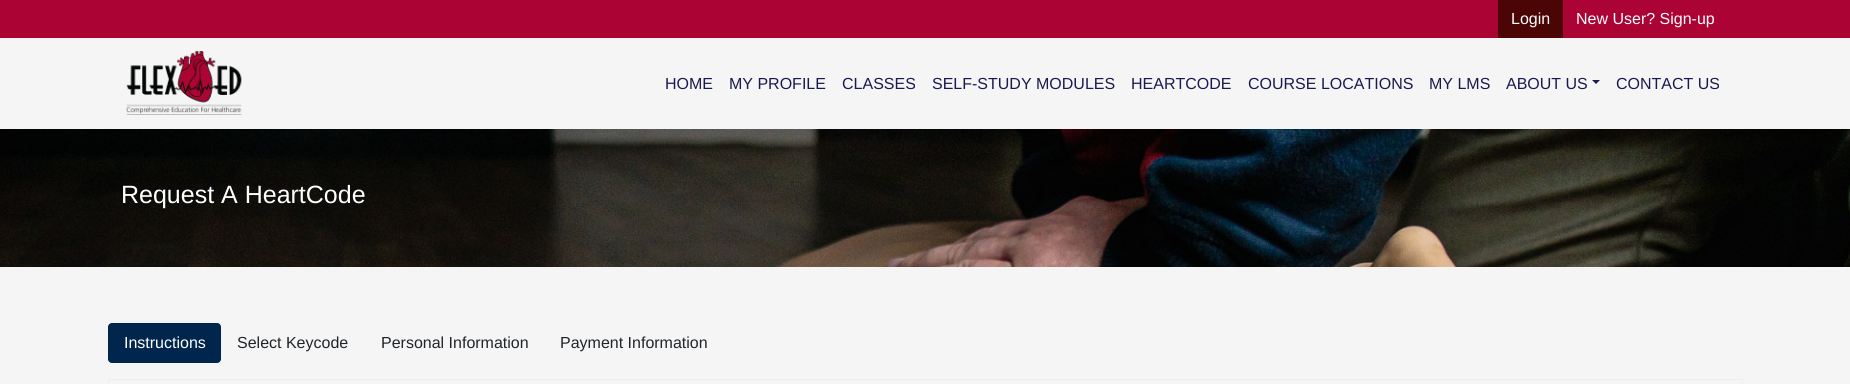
import math
import cairo



def rounded_rect(context, x, y, w, h, r):
    context.new_sub_path()
    for i, (u, v) in enumerate([(x + w - r, y + h - r), (x + r, y + h - r), (x + r, y + r), (x + w - r, y + r)]):
        context.arc(u, v, r, i * math.pi / 2, (i + 1) * math.pi / 2)
    context.close_path()


def draw_image(context, path, x, y, w, h):
    context.save()
    context.set_source_surface(cairo.ImageSurface.create_from_png(path), x, y)
    context.rectangle(x, y, w, h)
    context.fill()
    context.restore()


def draw(context):
    context.set_source_rgb(245 / 255, 245 / 255, 245 / 255)
    context.paint()
    context.set_source_rgb(171 / 255, 3 / 255, 52 / 255)
    context.rectangle(0, 0, 1850, 38)
    context.fill()
    context.set_source_rgb(75 / 255, 5 / 255, 5 / 255)
    context.rectangle(1498, 0, 65, 38)
    context.fill()
    draw_image(context, "images/1.png", 126, 51, 116, 64)
    context.set_source_rgb(24 / 255, 27 / 255, 80 / 255)
    context.new_path()
    context.move_to(1592, 80)
    context.line_to(1600, 80)
    context.line_to(1596, 84)
    context.close_path()
    context.fill()
    draw_image(context, "images/2.png", 0, 129, 1850, 138)
    context.set_source_rgb(0, 38 / 255, 78 / 255)
    rounded_rect(context, 108, 323, 113, 40, 4)
    context.fill()
    context.rectangle(108.5, 379.5, 1634, 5)
    context.set_source_rgb(238 / 255, 238 / 255, 238 / 255)
    context.set_line_width(1)
    context.stroke()
    context.select_font_face("Liberation Sans")
    context.set_font_size(16)
    context.set_source_rgb(1, 1, 1)
    context.move_to(1511, 24)
    context.show_text("Login")
    context.move_to(1576, 24)
    context.show_text("New User? Sign-up")
    context.set_source_rgb(24 / 255, 27 / 255, 80 / 255)
    context.move_to(665, 89)
    context.show_text("HOME")
    context.move_to(729, 89)
    context.show_text("MY PROFILE")
    context.move_to(842, 89)
    context.show_text("CLASSES")
    context.move_to(932, 89)
    context.show_text("SELF-STUDY MODULES")
    context.move_to(1131, 89)
    context.show_text("HEARTCODE")
    context.move_to(1248, 89)
    context.show_text("COURSE LOCATIONS")
    context.move_to(1429, 89)
    context.show_text("MY LMS")
    context.move_to(1506, 89)
    context.show_text("ABOUT US")
    context.move_to(1616, 89)
    context.show_text("CONTACT US")
    context.set_font_size(25)
    context.set_source_rgb(1, 1, 1)
    context.move_to(121, 203)
    context.show_text("Request A HeartCode")
    context.set_font_size(16)
    context.move_to(124, 348)
    context.show_text("Instructions")
    context.set_source_rgb(33 / 255, 37 / 255, 41 / 255)
    context.move_to(237, 348)
    context.show_text("Select Keycode")
    context.move_to(381, 348)
    context.show_text("Personal Information")
    context.move_to(560, 348)
    context.show_text("Payment Information")


surface = cairo.ImageSurface(cairo.Format.RGB24, 1850, 384)
context = cairo.Context(surface)
options = cairo.FontOptions()
options.set_hint_metrics(cairo.HintMetrics.OFF)
options.set_hint_style(cairo.HintStyle.NONE)
context.set_font_options(options)
context.set_miter_limit(4)
draw(context)
surface.write_to_png("out.png")
